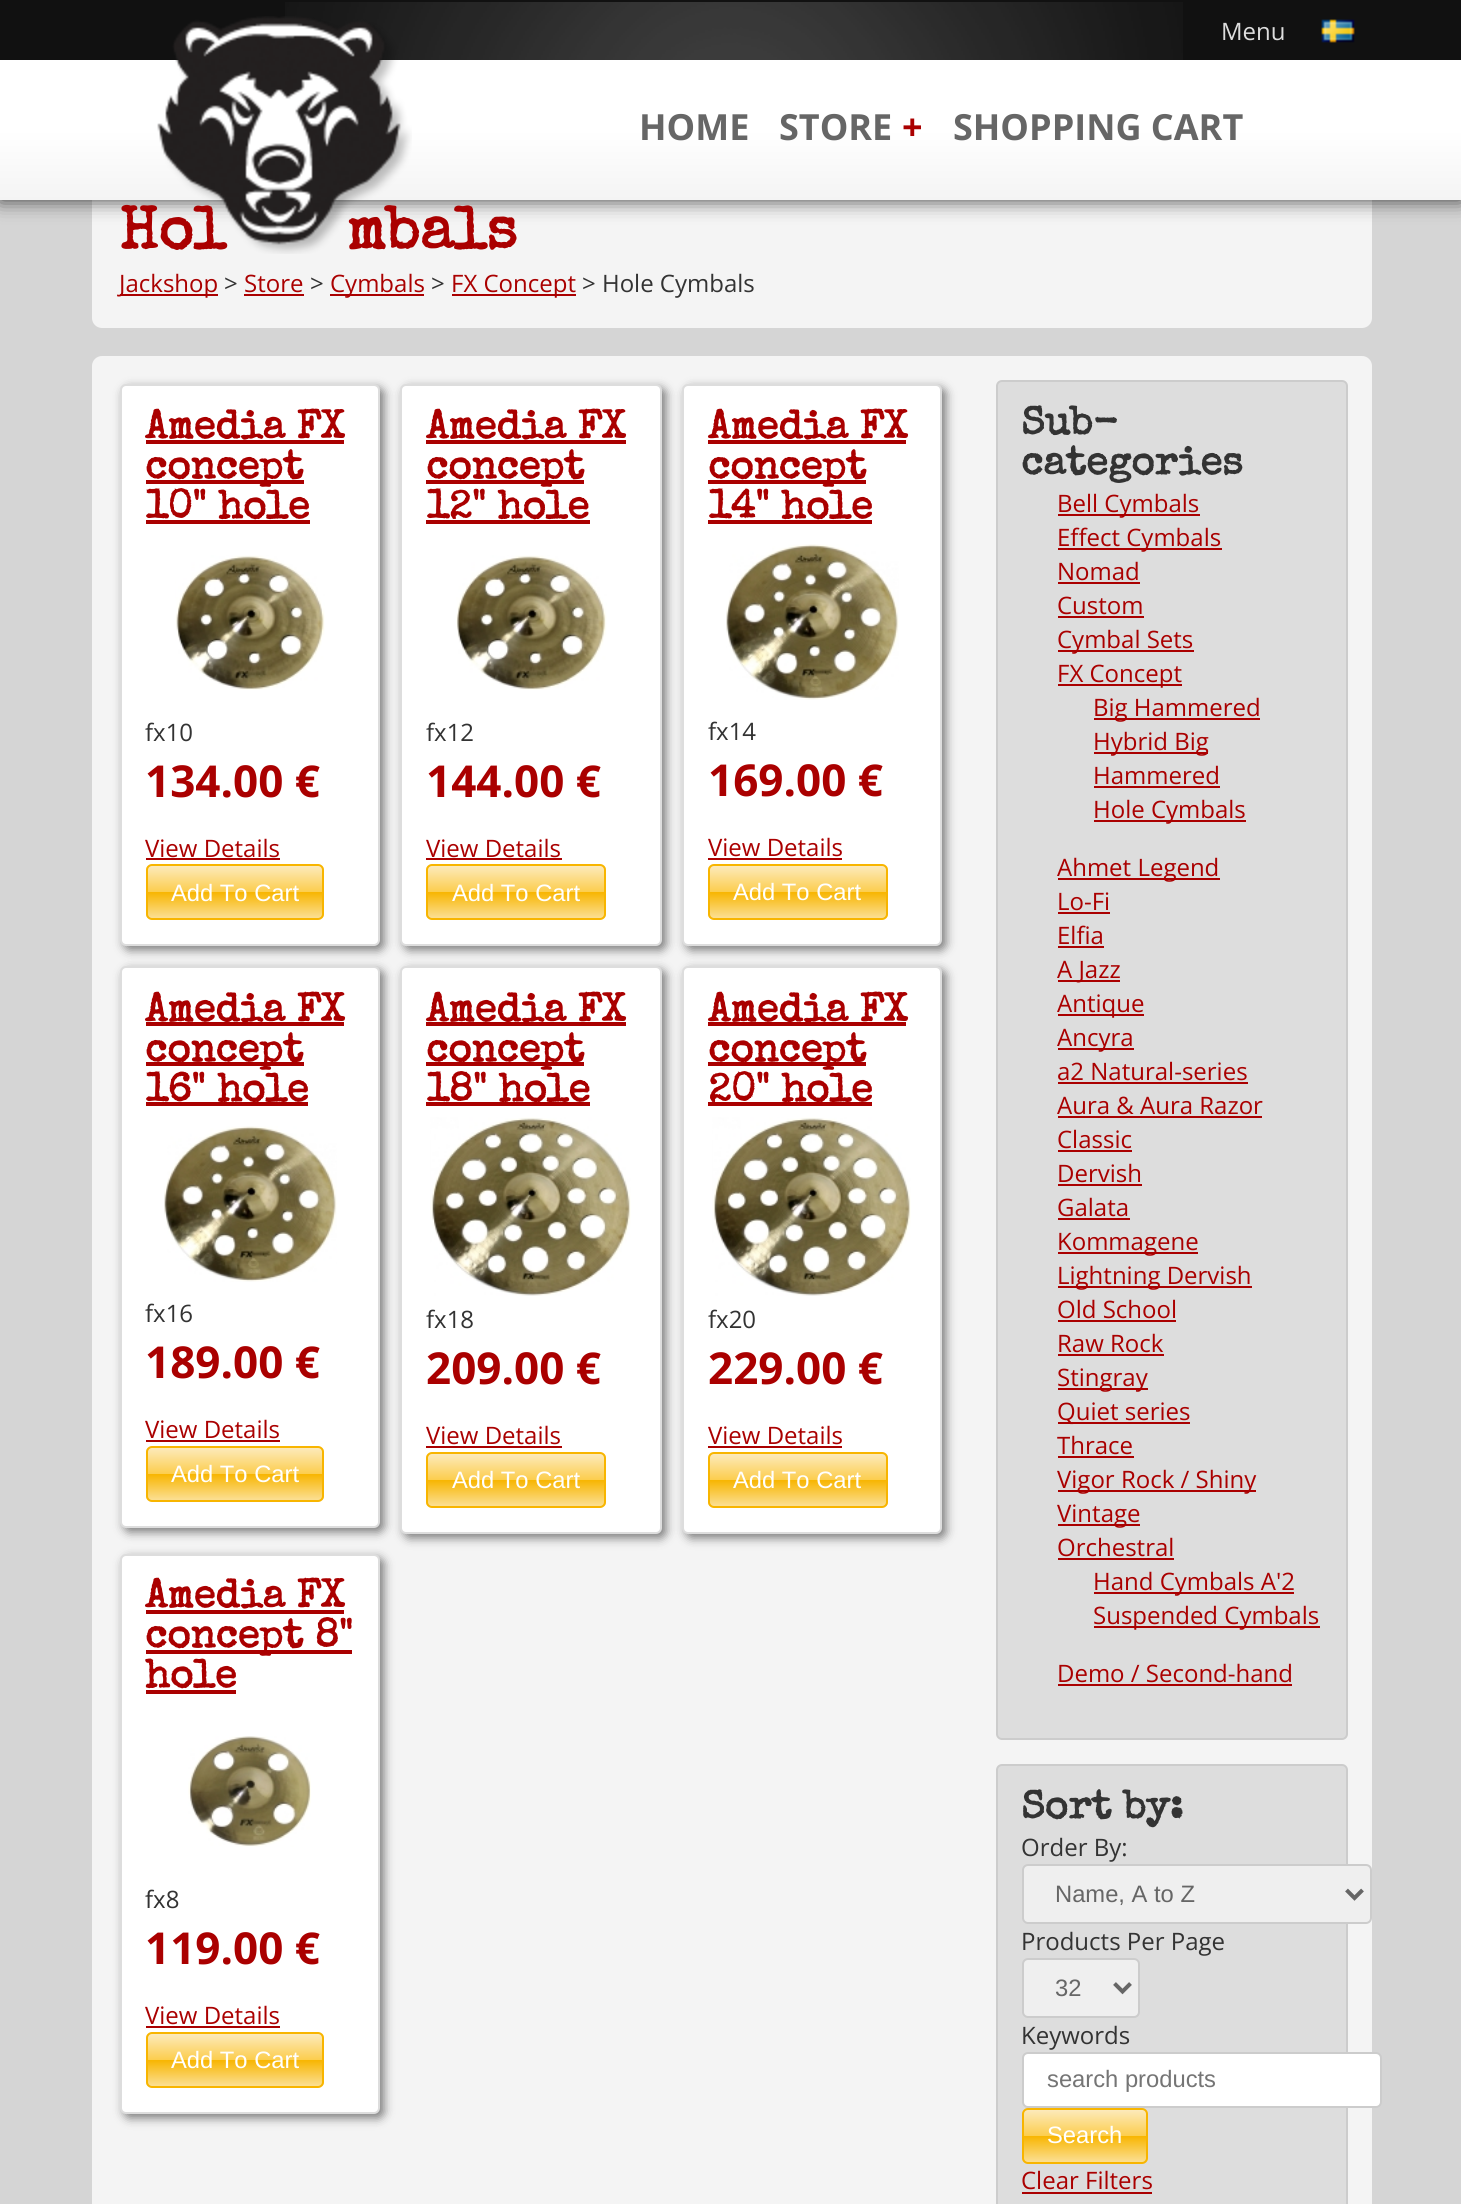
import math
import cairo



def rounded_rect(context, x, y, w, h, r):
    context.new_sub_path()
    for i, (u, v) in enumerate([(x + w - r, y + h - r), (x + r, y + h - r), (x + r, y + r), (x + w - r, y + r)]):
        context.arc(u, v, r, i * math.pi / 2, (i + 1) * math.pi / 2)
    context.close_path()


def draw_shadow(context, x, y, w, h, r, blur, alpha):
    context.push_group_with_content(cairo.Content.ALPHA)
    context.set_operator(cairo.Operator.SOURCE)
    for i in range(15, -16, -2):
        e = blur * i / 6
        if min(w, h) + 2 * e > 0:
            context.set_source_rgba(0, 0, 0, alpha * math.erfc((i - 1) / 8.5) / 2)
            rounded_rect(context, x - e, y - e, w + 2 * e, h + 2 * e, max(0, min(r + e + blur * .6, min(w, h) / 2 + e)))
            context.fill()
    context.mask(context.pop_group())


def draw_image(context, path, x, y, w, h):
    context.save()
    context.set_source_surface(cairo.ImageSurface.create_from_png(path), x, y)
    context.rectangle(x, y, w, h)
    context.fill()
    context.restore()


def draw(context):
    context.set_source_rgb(213 / 255, 213 / 255, 213 / 255)
    context.paint()
    context.set_source_rgb(244 / 255, 244 / 255, 244 / 255)
    rounded_rect(context, 92, 178, 1280, 150, 10)
    context.fill()
    context.set_source_rgb(0, 0, 0)
    draw_shadow(context, 0, 0, 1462, 200, 0, 10, 0.75)
    gradient = cairo.LinearGradient(731, 60, 731, 200)
    gradient.add_color_stop_rgba(0, 1, 1, 1, 1)
    gradient.add_color_stop_rgba(0.5, 1, 1, 1, 1)
    gradient.add_color_stop_rgba(1, 244 / 255, 244 / 255, 244 / 255, 1)
    context.set_source(gradient)
    context.rectangle(0, 60, 1461, 140)
    context.fill()
    context.set_source_rgb(17 / 255, 17 / 255, 17 / 255)
    context.rectangle(0, 0, 1461, 60)
    context.fill()
    draw_image(context, "images/1.png", 285, 2, 898, 58)
    draw_image(context, "images/3.png", 1321, 19, 34, 24)
    context.set_source_rgb(170 / 255, 0, 0)
    context.rectangle(120, 294, 98, 2)
    context.fill()
    context.rectangle(244, 294, 60, 2)
    context.fill()
    context.rectangle(330, 294, 94, 2)
    context.fill()
    context.rectangle(452, 294, 124, 2)
    context.fill()
    context.set_source_rgb(244 / 255, 244 / 255, 244 / 255)
    rounded_rect(context, 92, 356, 1280, 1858, 10)
    context.fill()
    context.set_source_rgb(0, 0, 0)
    draw_shadow(context, 124, 388, 260, 562, 6, 5, 0.5)
    context.set_source_rgb(1, 1, 1)
    rounded_rect(context, 121, 385, 258, 560, 5)
    context.fill_preserve()
    context.set_source_rgb(221 / 255, 221 / 255, 221 / 255)
    context.stroke()
    context.set_source_rgb(170 / 255, 0, 0)
    context.rectangle(146, 440, 198, 4)
    context.fill()
    context.rectangle(146, 480, 158, 4)
    context.fill()
    context.rectangle(146, 520, 164, 4)
    context.fill()
    draw_image(context, "images/4.png", 175, 555, 150, 135)
    context.rectangle(146, 858, 134, 2)
    context.fill()
    context.save()
    rounded_rect(context, 146, 864, 178, 56, 6)
    context.clip()
    gradient = cairo.LinearGradient(235, 866, 235, 918)
    gradient.add_color_stop_rgba(0, 252 / 255, 234 / 255, 187 / 255, 1)
    gradient.add_color_stop_rgba(0.5, 252 / 255, 205 / 255, 77 / 255, 1)
    gradient.add_color_stop_rgba(0.5, 248 / 255, 181 / 255, 0, 1)
    gradient.add_color_stop_rgba(1, 251 / 255, 223 / 255, 147 / 255, 1)
    context.set_source(gradient)
    context.rectangle(146, 866, 178, 52)
    context.fill()
    context.restore()
    rounded_rect(context, 147, 865, 176, 54, 5)
    context.set_source_rgb(248 / 255, 181 / 255, 0)
    context.stroke()
    context.set_source_rgb(0, 0, 0)
    draw_shadow(context, 404, 388, 262, 562, 6, 5, 0.5)
    context.set_source_rgb(1, 1, 1)
    rounded_rect(context, 401, 385, 260, 560, 5)
    context.fill_preserve()
    context.set_source_rgb(221 / 255, 221 / 255, 221 / 255)
    context.stroke()
    context.set_source_rgb(170 / 255, 0, 0)
    context.rectangle(426, 440, 200, 4)
    context.fill()
    context.rectangle(426, 480, 158, 4)
    context.fill()
    context.rectangle(426, 520, 164, 4)
    context.fill()
    draw_image(context, "images/5.png", 456, 555, 151, 135)
    context.rectangle(426, 858, 136, 2)
    context.fill()
    context.save()
    rounded_rect(context, 426, 864, 180, 56, 6)
    context.clip()
    gradient = cairo.LinearGradient(516, 866, 516, 918)
    gradient.add_color_stop_rgba(0, 252 / 255, 234 / 255, 187 / 255, 1)
    gradient.add_color_stop_rgba(0.5, 252 / 255, 205 / 255, 77 / 255, 1)
    gradient.add_color_stop_rgba(0.5, 248 / 255, 181 / 255, 0, 1)
    gradient.add_color_stop_rgba(1, 251 / 255, 223 / 255, 147 / 255, 1)
    context.set_source(gradient)
    context.rectangle(426, 866, 180, 52)
    context.fill()
    context.restore()
    rounded_rect(context, 427, 865, 178, 54, 5)
    context.set_source_rgb(248 / 255, 181 / 255, 0)
    context.stroke()
    context.set_source_rgb(0, 0, 0)
    draw_shadow(context, 686, 388, 260, 562, 6, 5, 0.5)
    context.set_source_rgb(1, 1, 1)
    rounded_rect(context, 683, 385, 258, 560, 5)
    context.fill_preserve()
    context.set_source_rgb(221 / 255, 221 / 255, 221 / 255)
    context.stroke()
    context.set_source_rgb(170 / 255, 0, 0)
    context.rectangle(708, 440, 198, 4)
    context.fill()
    context.rectangle(708, 480, 158, 4)
    context.fill()
    context.rectangle(708, 520, 164, 4)
    context.fill()
    draw_image(context, "images/6.png", 726, 544, 173, 156)
    context.rectangle(708, 858, 134, 2)
    context.fill()
    context.save()
    rounded_rect(context, 708, 864, 180, 56, 6)
    context.clip()
    gradient = cairo.LinearGradient(798, 866, 798, 918)
    gradient.add_color_stop_rgba(0, 252 / 255, 234 / 255, 187 / 255, 1)
    gradient.add_color_stop_rgba(0.5, 252 / 255, 205 / 255, 77 / 255, 1)
    gradient.add_color_stop_rgba(0.5, 248 / 255, 181 / 255, 0, 1)
    gradient.add_color_stop_rgba(1, 251 / 255, 223 / 255, 147 / 255, 1)
    context.set_source(gradient)
    context.rectangle(708, 866, 180, 52)
    context.fill()
    context.restore()
    rounded_rect(context, 709, 865, 178, 54, 5)
    context.set_source_rgb(248 / 255, 181 / 255, 0)
    context.stroke()
    context.set_source_rgb(0, 0, 0)
    draw_shadow(context, 124, 970, 260, 562, 6, 5, 0.5)
    context.set_source_rgb(1, 1, 1)
    rounded_rect(context, 121, 967, 258, 560, 5)
    context.fill_preserve()
    context.set_source_rgb(221 / 255, 221 / 255, 221 / 255)
    context.stroke()
    context.set_source_rgb(170 / 255, 0, 0)
    context.rectangle(146, 1022, 198, 4)
    context.fill()
    context.rectangle(146, 1062, 158, 4)
    context.fill()
    context.rectangle(146, 1102, 162, 4)
    context.fill()
    draw_image(context, "images/6.png", 164, 1126, 173, 156)
    context.rectangle(146, 1440, 134, 2)
    context.fill()
    context.save()
    rounded_rect(context, 146, 1446, 178, 56, 6)
    context.clip()
    gradient = cairo.LinearGradient(235, 1448, 235, 1500)
    gradient.add_color_stop_rgba(0, 252 / 255, 234 / 255, 187 / 255, 1)
    gradient.add_color_stop_rgba(0.5, 252 / 255, 205 / 255, 77 / 255, 1)
    gradient.add_color_stop_rgba(0.5, 248 / 255, 181 / 255, 0, 1)
    gradient.add_color_stop_rgba(1, 251 / 255, 223 / 255, 147 / 255, 1)
    context.set_source(gradient)
    context.rectangle(146, 1448, 178, 52)
    context.fill()
    context.restore()
    rounded_rect(context, 147, 1447, 176, 54, 5)
    context.set_source_rgb(248 / 255, 181 / 255, 0)
    context.stroke()
    context.set_source_rgb(0, 0, 0)
    draw_shadow(context, 404, 970, 262, 568, 6, 5, 0.5)
    context.set_source_rgb(1, 1, 1)
    rounded_rect(context, 401, 967, 260, 566, 5)
    context.fill_preserve()
    context.set_source_rgb(221 / 255, 221 / 255, 221 / 255)
    context.stroke()
    context.set_source_rgb(170 / 255, 0, 0)
    context.rectangle(426, 1022, 200, 4)
    context.fill()
    context.rectangle(426, 1062, 158, 4)
    context.fill()
    context.rectangle(426, 1102, 164, 4)
    context.fill()
    draw_image(context, "images/7.png", 430, 1117, 201, 179)
    context.rectangle(426, 1446, 136, 2)
    context.fill()
    context.save()
    rounded_rect(context, 426, 1452, 180, 56, 6)
    context.clip()
    gradient = cairo.LinearGradient(516, 1454, 516, 1506)
    gradient.add_color_stop_rgba(0, 252 / 255, 234 / 255, 187 / 255, 1)
    gradient.add_color_stop_rgba(0.5, 252 / 255, 205 / 255, 77 / 255, 1)
    gradient.add_color_stop_rgba(0.5, 248 / 255, 181 / 255, 0, 1)
    gradient.add_color_stop_rgba(1, 251 / 255, 223 / 255, 147 / 255, 1)
    context.set_source(gradient)
    context.rectangle(426, 1454, 180, 52)
    context.fill()
    context.restore()
    rounded_rect(context, 427, 1453, 178, 54, 5)
    context.set_source_rgb(248 / 255, 181 / 255, 0)
    context.stroke()
    context.set_source_rgb(0, 0, 0)
    draw_shadow(context, 686, 970, 260, 568, 6, 5, 0.5)
    context.set_source_rgb(1, 1, 1)
    rounded_rect(context, 683, 967, 258, 566, 5)
    context.fill_preserve()
    context.set_source_rgb(221 / 255, 221 / 255, 221 / 255)
    context.stroke()
    context.set_source_rgb(170 / 255, 0, 0)
    context.rectangle(708, 1022, 198, 4)
    context.fill()
    context.rectangle(708, 1062, 158, 4)
    context.fill()
    context.rectangle(708, 1102, 164, 4)
    context.fill()
    draw_image(context, "images/8.png", 712, 1117, 199, 179)
    context.rectangle(708, 1446, 134, 2)
    context.fill()
    context.save()
    rounded_rect(context, 708, 1452, 180, 56, 6)
    context.clip()
    gradient = cairo.LinearGradient(798, 1454, 798, 1506)
    gradient.add_color_stop_rgba(0, 252 / 255, 234 / 255, 187 / 255, 1)
    gradient.add_color_stop_rgba(0.5, 252 / 255, 205 / 255, 77 / 255, 1)
    gradient.add_color_stop_rgba(0.5, 248 / 255, 181 / 255, 0, 1)
    gradient.add_color_stop_rgba(1, 251 / 255, 223 / 255, 147 / 255, 1)
    context.set_source(gradient)
    context.rectangle(708, 1454, 180, 52)
    context.fill()
    context.restore()
    rounded_rect(context, 709, 1453, 178, 54, 5)
    context.set_source_rgb(248 / 255, 181 / 255, 0)
    context.stroke()
    context.set_source_rgb(0, 0, 0)
    draw_shadow(context, 124, 1558, 260, 560, 6, 5, 0.5)
    context.set_source_rgb(1, 1, 1)
    rounded_rect(context, 121, 1555, 258, 558, 5)
    context.fill_preserve()
    context.set_source_rgb(221 / 255, 221 / 255, 221 / 255)
    context.stroke()
    context.set_source_rgb(170 / 255, 0, 0)
    context.rectangle(146, 1610, 198, 4)
    context.fill()
    context.rectangle(146, 1650, 206, 4)
    context.fill()
    context.rectangle(146, 1690, 90, 4)
    context.fill()
    draw_image(context, "images/9.png", 188, 1736, 123, 111)
    context.rectangle(146, 2026, 134, 2)
    context.fill()
    context.save()
    rounded_rect(context, 146, 2032, 178, 56, 6)
    context.clip()
    gradient = cairo.LinearGradient(235, 2034, 235, 2086)
    gradient.add_color_stop_rgba(0, 252 / 255, 234 / 255, 187 / 255, 1)
    gradient.add_color_stop_rgba(0.5, 252 / 255, 205 / 255, 77 / 255, 1)
    gradient.add_color_stop_rgba(0.5, 248 / 255, 181 / 255, 0, 1)
    gradient.add_color_stop_rgba(1, 251 / 255, 223 / 255, 147 / 255, 1)
    context.set_source(gradient)
    context.rectangle(146, 2034, 178, 52)
    context.fill()
    context.restore()
    rounded_rect(context, 147, 2033, 176, 54, 5)
    context.set_source_rgb(248 / 255, 181 / 255, 0)
    context.stroke()
    context.set_source_rgb(221 / 255, 221 / 255, 221 / 255)
    rounded_rect(context, 997, 381, 350, 1358, 5)
    context.fill_preserve()
    context.set_source_rgb(204 / 255, 204 / 255, 204 / 255)
    context.stroke()
    context.set_source_rgb(170 / 255, 0, 0)
    context.rectangle(1058, 514, 142, 2)
    context.fill()
    context.rectangle(1058, 548, 164, 2)
    context.fill()
    context.rectangle(1058, 582, 82, 2)
    context.fill()
    context.rectangle(1058, 616, 86, 2)
    context.fill()
    context.rectangle(1058, 650, 136, 2)
    context.fill()
    context.rectangle(1058, 684, 124, 2)
    context.fill()
    context.rectangle(1094, 718, 166, 2)
    context.fill()
    context.rectangle(1094, 752, 114, 2)
    context.fill()
    context.rectangle(1094, 786, 126, 2)
    context.fill()
    context.rectangle(1094, 820, 152, 2)
    context.fill()
    context.rectangle(1058, 878, 162, 2)
    context.fill()
    context.rectangle(1058, 912, 52, 2)
    context.fill()
    context.rectangle(1058, 946, 46, 2)
    context.fill()
    context.rectangle(1058, 980, 62, 2)
    context.fill()
    context.rectangle(1058, 1014, 86, 2)
    context.fill()
    context.rectangle(1058, 1048, 76, 2)
    context.fill()
    context.rectangle(1058, 1082, 190, 2)
    context.fill()
    context.rectangle(1058, 1116, 204, 2)
    context.fill()
    context.rectangle(1058, 1150, 74, 2)
    context.fill()
    context.rectangle(1058, 1184, 84, 2)
    context.fill()
    context.rectangle(1058, 1218, 72, 2)
    context.fill()
    context.rectangle(1058, 1252, 140, 2)
    context.fill()
    context.rectangle(1058, 1286, 194, 2)
    context.fill()
    context.rectangle(1058, 1320, 118, 2)
    context.fill()
    context.rectangle(1058, 1354, 106, 2)
    context.fill()
    context.rectangle(1058, 1388, 90, 2)
    context.fill()
    context.rectangle(1058, 1422, 132, 2)
    context.fill()
    context.rectangle(1058, 1456, 76, 2)
    context.fill()
    context.rectangle(1058, 1490, 198, 2)
    context.fill()
    context.rectangle(1058, 1524, 82, 2)
    context.fill()
    context.rectangle(1058, 1558, 116, 2)
    context.fill()
    context.rectangle(1094, 1592, 200, 2)
    context.fill()
    context.rectangle(1094, 1626, 226, 2)
    context.fill()
    context.rectangle(1058, 1684, 234, 2)
    context.fill()
    context.set_source_rgb(221 / 255, 221 / 255, 221 / 255)
    rounded_rect(context, 997, 1765, 350, 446, 5)
    context.fill_preserve()
    context.set_source_rgb(204 / 255, 204 / 255, 204 / 255)
    context.stroke()
    context.set_source_rgb(239 / 255, 239 / 255, 239 / 255)
    rounded_rect(context, 1023, 1865, 348, 58, 5)
    context.fill_preserve()
    context.set_source_rgb(204 / 255, 204 / 255, 204 / 255)
    context.stroke()
    context.new_path()
    context.move_to(1346.5, 1890)
    context.line_to(1354.5, 1898)
    context.line_to(1362.5, 1890)
    context.set_source_rgb(102 / 255, 102 / 255, 102 / 255)
    context.set_line_width(4)
    context.stroke()
    context.set_source_rgb(239 / 255, 239 / 255, 239 / 255)
    rounded_rect(context, 1023, 1959, 116, 58, 5)
    context.fill_preserve()
    context.set_source_rgb(204 / 255, 204 / 255, 204 / 255)
    context.set_line_width(2)
    context.stroke()
    context.new_path()
    context.move_to(1114.5, 1983.5)
    context.line_to(1122.5, 1991.5)
    context.line_to(1130.5, 1983.5)
    context.set_source_rgb(102 / 255, 102 / 255, 102 / 255)
    context.set_line_width(4)
    context.stroke()
    context.set_source_rgb(1, 1, 1)
    rounded_rect(context, 1023, 2053, 358, 54, 5)
    context.fill_preserve()
    context.set_source_rgb(204 / 255, 204 / 255, 204 / 255)
    context.set_line_width(2)
    context.stroke()
    context.save()
    rounded_rect(context, 1022, 2108, 126, 56, 6)
    context.clip()
    gradient = cairo.LinearGradient(1085, 2110, 1085, 2162)
    gradient.add_color_stop_rgba(0, 252 / 255, 234 / 255, 187 / 255, 1)
    gradient.add_color_stop_rgba(0.5, 252 / 255, 205 / 255, 77 / 255, 1)
    gradient.add_color_stop_rgba(0.5, 248 / 255, 181 / 255, 0, 1)
    gradient.add_color_stop_rgba(1, 251 / 255, 223 / 255, 147 / 255, 1)
    context.set_source(gradient)
    context.rectangle(1022, 2110, 126, 52)
    context.fill()
    context.restore()
    rounded_rect(context, 1023, 2109, 124, 54, 5)
    context.set_source_rgb(248 / 255, 181 / 255, 0)
    context.stroke()
    context.set_source_rgb(170 / 255, 0, 0)
    context.rectangle(1022, 2192, 130, 2)
    context.fill()
    context.select_font_face("Open Sans")
    context.set_font_size(24)
    context.set_source_rgb(221 / 255, 221 / 255, 221 / 255)
    context.move_to(1221, 40)
    context.show_text("Menu")
    context.select_font_face("Open Sans", cairo.FontSlant.NORMAL, cairo.FontWeight.BOLD)
    context.set_font_size(36)
    context.set_source_rgb(102 / 255, 102 / 255, 102 / 255)
    context.move_to(639, 140)
    context.show_text("HOME")
    context.move_to(779, 140)
    context.show_text("STORE")
    context.set_source_rgb(170 / 255, 0, 0)
    context.move_to(902, 140)
    context.show_text("+")
    context.set_source_rgb(102 / 255, 102 / 255, 102 / 255)
    context.move_to(953, 140)
    context.show_text("SHOPPING CART")
    context.select_font_face("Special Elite", cairo.FontSlant.NORMAL, cairo.FontWeight.BOLD)
    context.set_font_size(60)
    context.set_source_rgb(170 / 255, 0, 0)
    context.move_to(119, 248)
    context.show_text("Hol")
    context.move_to(346, 248)
    context.show_text("mbals")
    draw_image(context, "images/2.png", 157, 16, 255, 238)
    context.select_font_face("Open Sans")
    context.set_font_size(24)
    context.move_to(119, 292)
    context.show_text("Jackshop")
    context.set_source_rgb(51 / 255, 51 / 255, 51 / 255)
    context.move_to(224, 292)
    context.show_text(">")
    context.set_source_rgb(170 / 255, 0, 0)
    context.move_to(244, 292)
    context.show_text("Store")
    context.set_source_rgb(51 / 255, 51 / 255, 51 / 255)
    context.move_to(310, 292)
    context.show_text(">")
    context.set_source_rgb(170 / 255, 0, 0)
    context.move_to(330, 292)
    context.show_text("Cymbals")
    context.set_source_rgb(51 / 255, 51 / 255, 51 / 255)
    context.move_to(431, 292)
    context.show_text(">")
    context.set_source_rgb(170 / 255, 0, 0)
    context.move_to(451, 292)
    context.show_text("FX Concept")
    context.set_source_rgb(51 / 255, 51 / 255, 51 / 255)
    context.move_to(582, 292)
    context.show_text("> Hole Cymbals")
    context.select_font_face("Special Elite", cairo.FontSlant.NORMAL, cairo.FontWeight.BOLD)
    context.set_font_size(40)
    context.set_source_rgb(170 / 255, 0, 0)
    context.move_to(145, 438)
    context.show_text("Amedia FX")
    context.move_to(145, 478)
    context.show_text("concept")
    context.move_to(145, 518)
    context.show_text("10\" hole")
    context.select_font_face("Open Sans")
    context.set_font_size(24)
    context.set_source_rgb(51 / 255, 51 / 255, 51 / 255)
    context.move_to(145, 741)
    context.show_text("fx10")
    context.select_font_face("Open Sans", cairo.FontSlant.NORMAL, cairo.FontWeight.BOLD)
    context.set_font_size(44)
    context.set_source_rgb(170 / 255, 0, 0)
    context.move_to(145, 797)
    context.show_text("134.00 €")
    context.select_font_face("Open Sans")
    context.set_font_size(24)
    context.move_to(145, 857)
    context.show_text("View Details")
    context.select_font_face("Liberation Sans")
    context.set_font_size(23.75)
    context.set_source_rgb(1, 1, 1)
    context.move_to(171, 901)
    context.show_text("Add To Cart")
    context.select_font_face("Special Elite", cairo.FontSlant.NORMAL, cairo.FontWeight.BOLD)
    context.set_font_size(40)
    context.set_source_rgb(170 / 255, 0, 0)
    context.move_to(426, 438)
    context.show_text("Amedia FX")
    context.move_to(426, 478)
    context.show_text("concept")
    context.move_to(426, 518)
    context.show_text("12\" hole")
    context.select_font_face("Open Sans")
    context.set_font_size(24)
    context.set_source_rgb(51 / 255, 51 / 255, 51 / 255)
    context.move_to(426, 741)
    context.show_text("fx12")
    context.select_font_face("Open Sans", cairo.FontSlant.NORMAL, cairo.FontWeight.BOLD)
    context.set_font_size(44)
    context.set_source_rgb(170 / 255, 0, 0)
    context.move_to(426, 797)
    context.show_text("144.00 €")
    context.select_font_face("Open Sans")
    context.set_font_size(24)
    context.move_to(426, 857)
    context.show_text("View Details")
    context.select_font_face("Liberation Sans")
    context.set_font_size(23.75)
    context.set_source_rgb(1, 1, 1)
    context.move_to(452, 901)
    context.show_text("Add To Cart")
    context.select_font_face("Special Elite", cairo.FontSlant.NORMAL, cairo.FontWeight.BOLD)
    context.set_font_size(40)
    context.set_source_rgb(170 / 255, 0, 0)
    context.move_to(708, 438)
    context.show_text("Amedia FX")
    context.move_to(708, 478)
    context.show_text("concept")
    context.move_to(708, 518)
    context.show_text("14\" hole")
    context.select_font_face("Open Sans")
    context.set_font_size(24)
    context.set_source_rgb(51 / 255, 51 / 255, 51 / 255)
    context.move_to(708, 740)
    context.show_text("fx14")
    context.select_font_face("Open Sans", cairo.FontSlant.NORMAL, cairo.FontWeight.BOLD)
    context.set_font_size(44)
    context.set_source_rgb(170 / 255, 0, 0)
    context.move_to(708, 796)
    context.show_text("169.00 €")
    context.select_font_face("Open Sans")
    context.set_font_size(24)
    context.move_to(708, 856)
    context.show_text("View Details")
    context.select_font_face("Liberation Sans")
    context.set_font_size(23.75)
    context.set_source_rgb(1, 1, 1)
    context.move_to(733, 900)
    context.show_text("Add To Cart")
    context.select_font_face("Special Elite", cairo.FontSlant.NORMAL, cairo.FontWeight.BOLD)
    context.set_font_size(40)
    context.set_source_rgb(170 / 255, 0, 0)
    context.move_to(145, 1021)
    context.show_text("Amedia FX")
    context.move_to(145, 1061)
    context.show_text("concept")
    context.move_to(145, 1101)
    context.show_text("16\" hole")
    context.select_font_face("Open Sans")
    context.set_font_size(24)
    context.set_source_rgb(51 / 255, 51 / 255, 51 / 255)
    context.move_to(145, 1322)
    context.show_text("fx16")
    context.select_font_face("Open Sans", cairo.FontSlant.NORMAL, cairo.FontWeight.BOLD)
    context.set_font_size(44)
    context.set_source_rgb(170 / 255, 0, 0)
    context.move_to(145, 1378)
    context.show_text("189.00 €")
    context.select_font_face("Open Sans")
    context.set_font_size(24)
    context.move_to(145, 1438)
    context.show_text("View Details")
    context.select_font_face("Liberation Sans")
    context.set_font_size(23.75)
    context.set_source_rgb(1, 1, 1)
    context.move_to(171, 1482)
    context.show_text("Add To Cart")
    context.select_font_face("Special Elite", cairo.FontSlant.NORMAL, cairo.FontWeight.BOLD)
    context.set_font_size(40)
    context.set_source_rgb(170 / 255, 0, 0)
    context.move_to(426, 1021)
    context.show_text("Amedia FX")
    context.move_to(426, 1061)
    context.show_text("concept")
    context.move_to(426, 1101)
    context.show_text("18\" hole")
    context.select_font_face("Open Sans")
    context.set_font_size(24)
    context.set_source_rgb(51 / 255, 51 / 255, 51 / 255)
    context.move_to(426, 1328)
    context.show_text("fx18")
    context.select_font_face("Open Sans", cairo.FontSlant.NORMAL, cairo.FontWeight.BOLD)
    context.set_font_size(44)
    context.set_source_rgb(170 / 255, 0, 0)
    context.move_to(426, 1384)
    context.show_text("209.00 €")
    context.select_font_face("Open Sans")
    context.set_font_size(24)
    context.move_to(426, 1444)
    context.show_text("View Details")
    context.select_font_face("Liberation Sans")
    context.set_font_size(23.75)
    context.set_source_rgb(1, 1, 1)
    context.move_to(452, 1488)
    context.show_text("Add To Cart")
    context.select_font_face("Special Elite", cairo.FontSlant.NORMAL, cairo.FontWeight.BOLD)
    context.set_font_size(40)
    context.set_source_rgb(170 / 255, 0, 0)
    context.move_to(708, 1021)
    context.show_text("Amedia FX")
    context.move_to(708, 1061)
    context.show_text("concept")
    context.move_to(708, 1101)
    context.show_text("20\" hole")
    context.select_font_face("Open Sans")
    context.set_font_size(24)
    context.set_source_rgb(51 / 255, 51 / 255, 51 / 255)
    context.move_to(708, 1328)
    context.show_text("fx20")
    context.select_font_face("Open Sans", cairo.FontSlant.NORMAL, cairo.FontWeight.BOLD)
    context.set_font_size(44)
    context.set_source_rgb(170 / 255, 0, 0)
    context.move_to(708, 1384)
    context.show_text("229.00 €")
    context.select_font_face("Open Sans")
    context.set_font_size(24)
    context.move_to(708, 1444)
    context.show_text("View Details")
    context.select_font_face("Liberation Sans")
    context.set_font_size(23.75)
    context.set_source_rgb(1, 1, 1)
    context.move_to(733, 1488)
    context.show_text("Add To Cart")
    context.select_font_face("Special Elite", cairo.FontSlant.NORMAL, cairo.FontWeight.BOLD)
    context.set_font_size(40)
    context.set_source_rgb(170 / 255, 0, 0)
    context.move_to(145, 1607)
    context.show_text("Amedia FX")
    context.move_to(145, 1647)
    context.show_text("concept 8\"")
    context.move_to(145, 1687)
    context.show_text("hole")
    context.select_font_face("Open Sans")
    context.set_font_size(24)
    context.set_source_rgb(51 / 255, 51 / 255, 51 / 255)
    context.move_to(145, 1908)
    context.show_text("fx8")
    context.select_font_face("Open Sans", cairo.FontSlant.NORMAL, cairo.FontWeight.BOLD)
    context.set_font_size(44)
    context.set_source_rgb(170 / 255, 0, 0)
    context.move_to(145, 1964)
    context.show_text("119.00 €")
    context.select_font_face("Open Sans")
    context.set_font_size(24)
    context.move_to(145, 2024)
    context.show_text("View Details")
    context.select_font_face("Liberation Sans")
    context.set_font_size(23.75)
    context.set_source_rgb(1, 1, 1)
    context.move_to(171, 2068)
    context.show_text("Add To Cart")
    context.select_font_face("Special Elite", cairo.FontSlant.NORMAL, cairo.FontWeight.BOLD)
    context.set_font_size(40)
    context.set_source_rgb(51 / 255, 51 / 255, 51 / 255)
    context.move_to(1021, 434)
    context.show_text("Sub-")
    context.move_to(1021, 474)
    context.show_text("categories")
    context.select_font_face("Open Sans")
    context.set_font_size(24)
    context.set_source_rgb(170 / 255, 0, 0)
    context.move_to(1057, 512)
    context.show_text("Bell Cymbals")
    context.move_to(1057, 546)
    context.show_text("Effect Cymbals")
    context.move_to(1057, 580)
    context.show_text("Nomad")
    context.move_to(1057, 614)
    context.show_text("Custom")
    context.move_to(1057, 648)
    context.show_text("Cymbal Sets")
    context.move_to(1057, 682)
    context.show_text("FX Concept")
    context.move_to(1093, 716)
    context.show_text("Big Hammered")
    context.move_to(1093, 750)
    context.show_text("Hybrid Big")
    context.move_to(1093, 784)
    context.show_text("Hammered")
    context.move_to(1093, 818)
    context.show_text("Hole Cymbals")
    context.move_to(1057, 876)
    context.show_text("Ahmet Legend")
    context.move_to(1057, 910)
    context.show_text("Lo-Fi")
    context.move_to(1057, 944)
    context.show_text("Elfia")
    context.move_to(1057, 978)
    context.show_text("A Jazz")
    context.move_to(1057, 1012)
    context.show_text("Antique")
    context.move_to(1057, 1046)
    context.show_text("Ancyra")
    context.move_to(1057, 1080)
    context.show_text("a2 Natural-series")
    context.move_to(1057, 1114)
    context.show_text("Aura & Aura Razor")
    context.move_to(1057, 1148)
    context.show_text("Classic")
    context.move_to(1057, 1182)
    context.show_text("Dervish")
    context.move_to(1057, 1216)
    context.show_text("Galata")
    context.move_to(1057, 1250)
    context.show_text("Kommagene")
    context.move_to(1057, 1284)
    context.show_text("Lightning Dervish")
    context.move_to(1057, 1318)
    context.show_text("Old School")
    context.move_to(1057, 1352)
    context.show_text("Raw Rock")
    context.move_to(1057, 1386)
    context.show_text("Stingray")
    context.move_to(1057, 1420)
    context.show_text("Quiet series")
    context.move_to(1057, 1454)
    context.show_text("Thrace")
    context.move_to(1057, 1488)
    context.show_text("Vigor Rock / Shiny")
    context.move_to(1057, 1522)
    context.show_text("Vintage")
    context.move_to(1057, 1556)
    context.show_text("Orchestral")
    context.move_to(1093, 1590)
    context.show_text("Hand Cymbals A'2")
    context.move_to(1093, 1624)
    context.show_text("Suspended Cymbals")
    context.move_to(1057, 1682)
    context.show_text("Demo / Second-hand")
    context.select_font_face("Special Elite", cairo.FontSlant.NORMAL, cairo.FontWeight.BOLD)
    context.set_font_size(40)
    context.set_source_rgb(51 / 255, 51 / 255, 51 / 255)
    context.move_to(1021, 1818)
    context.show_text("Sort by:")
    context.select_font_face("Open Sans")
    context.set_font_size(24)
    context.move_to(1021, 1856)
    context.show_text("Order By:")
    context.select_font_face("Liberation Sans")
    context.set_font_size(23.75)
    context.set_source_rgb(102 / 255, 102 / 255, 102 / 255)
    context.move_to(1055, 1902)
    context.show_text("Name, A to Z")
    context.select_font_face("Open Sans")
    context.set_font_size(24)
    context.set_source_rgb(51 / 255, 51 / 255, 51 / 255)
    context.move_to(1021, 1950)
    context.show_text("Products Per Page")
    context.select_font_face("Liberation Sans")
    context.set_font_size(23.75)
    context.set_source_rgb(102 / 255, 102 / 255, 102 / 255)
    context.move_to(1055, 1996)
    context.show_text("32")
    context.select_font_face("Open Sans")
    context.set_font_size(24)
    context.set_source_rgb(51 / 255, 51 / 255, 51 / 255)
    context.move_to(1021, 2044)
    context.show_text("Keywords")
    context.select_font_face("Liberation Sans")
    context.set_font_size(23.75)
    context.set_source_rgb(117 / 255, 117 / 255, 117 / 255)
    context.move_to(1047, 2087)
    context.show_text("search products")
    context.set_source_rgb(1, 1, 1)
    context.move_to(1047, 2143)
    context.show_text("Search")
    context.select_font_face("Open Sans")
    context.set_font_size(24)
    context.set_source_rgb(170 / 255, 0, 0)
    context.move_to(1021, 2189)
    context.show_text("Clear Filters")


surface = cairo.ImageSurface(cairo.Format.RGB24, 1461, 2204)
context = cairo.Context(surface)
options = cairo.FontOptions()
options.set_hint_metrics(cairo.HintMetrics.OFF)
options.set_hint_style(cairo.HintStyle.NONE)
context.set_font_options(options)
context.set_miter_limit(4)
draw(context)
surface.write_to_png("out.png")
